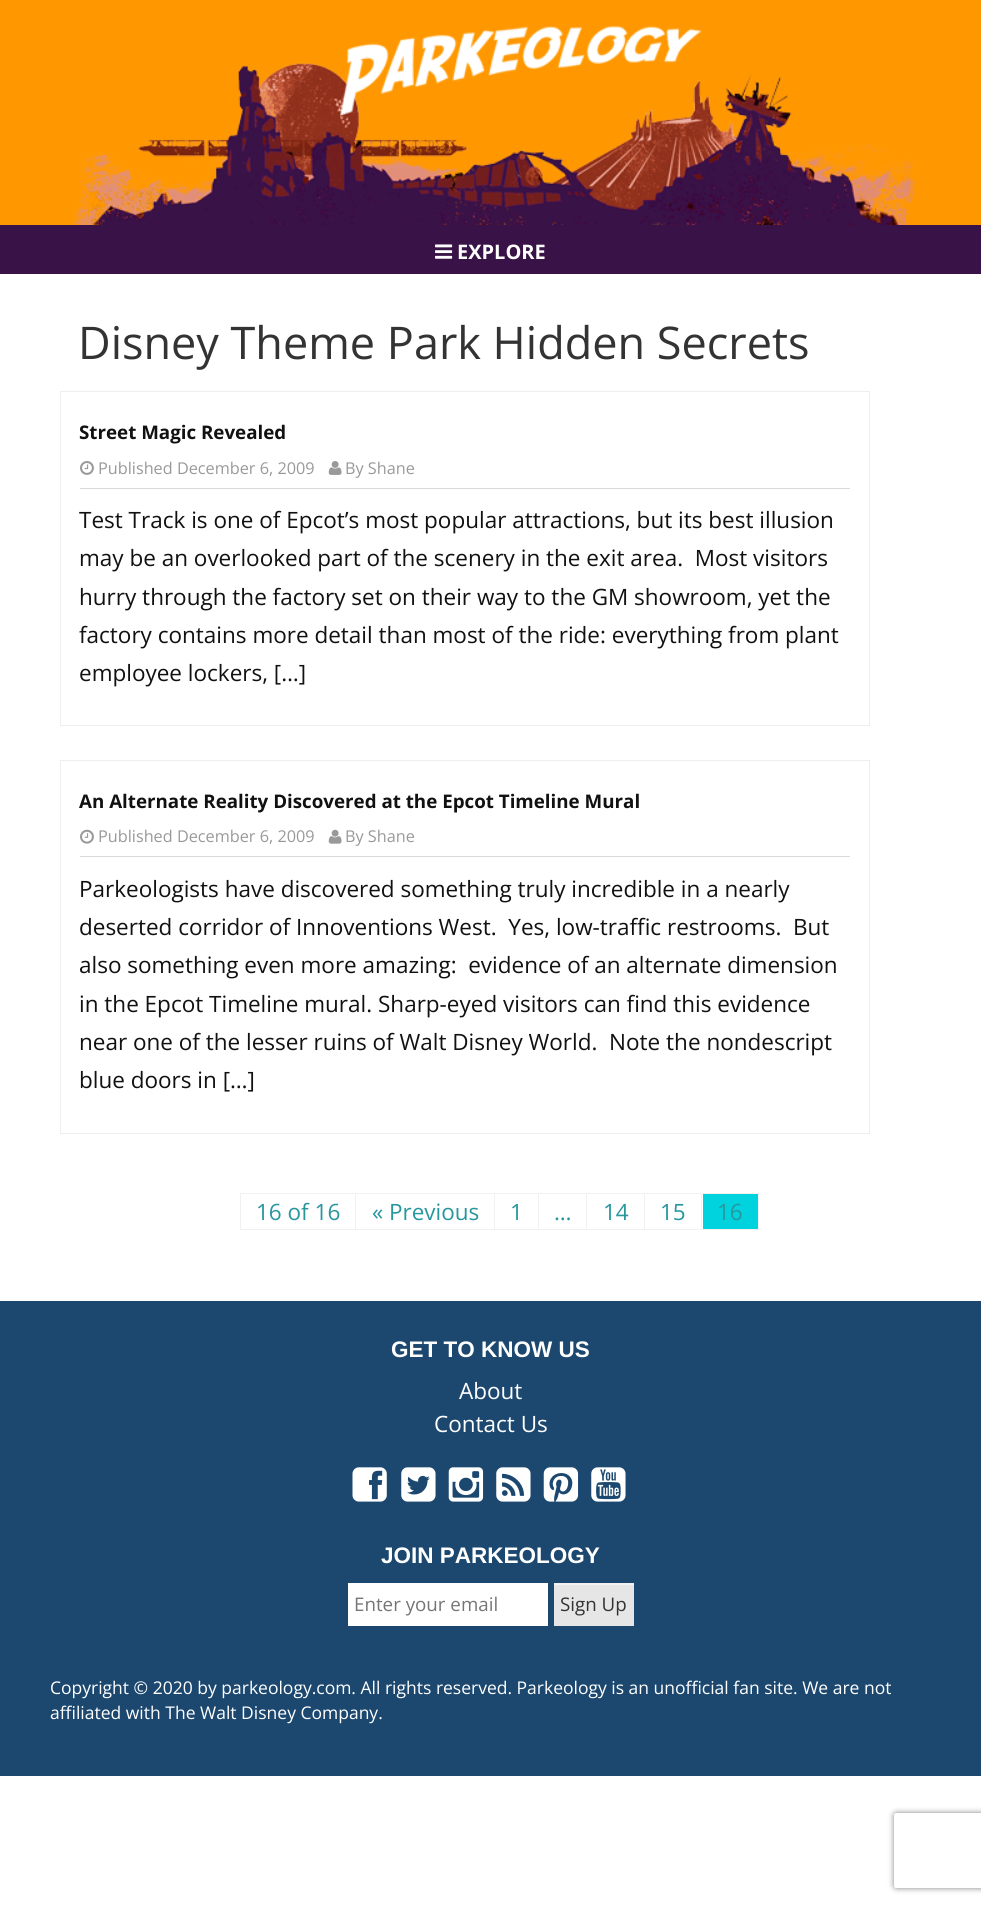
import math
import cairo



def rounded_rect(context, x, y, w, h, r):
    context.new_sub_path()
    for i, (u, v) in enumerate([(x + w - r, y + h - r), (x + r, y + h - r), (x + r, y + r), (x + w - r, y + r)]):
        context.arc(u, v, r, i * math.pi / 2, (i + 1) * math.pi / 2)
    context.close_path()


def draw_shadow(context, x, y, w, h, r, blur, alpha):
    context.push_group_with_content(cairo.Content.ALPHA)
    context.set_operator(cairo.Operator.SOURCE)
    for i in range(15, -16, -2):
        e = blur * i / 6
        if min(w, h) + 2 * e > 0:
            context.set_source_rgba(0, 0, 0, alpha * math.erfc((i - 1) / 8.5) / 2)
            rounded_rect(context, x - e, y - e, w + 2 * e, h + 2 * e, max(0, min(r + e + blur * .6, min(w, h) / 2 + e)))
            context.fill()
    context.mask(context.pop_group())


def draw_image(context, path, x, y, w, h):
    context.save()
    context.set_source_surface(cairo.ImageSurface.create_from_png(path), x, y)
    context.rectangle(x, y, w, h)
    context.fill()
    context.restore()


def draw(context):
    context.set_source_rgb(1, 1, 1)
    context.paint()
    context.set_source_rgb(1, 152 / 255, 0)
    context.rectangle(0, 0, 981, 225)
    context.fill()
    draw_image(context, "images/1.png", 73, 26, 844, 199)
    context.set_source_rgb(57 / 255, 18 / 255, 71 / 255)
    context.rectangle(0, 225, 981, 49)
    context.fill()
    draw_image(context, "images/2.png", 435, 244, 18, 15)
    context.rectangle(60.5, 391.5, 809, 334)
    context.set_source_rgb(238 / 255, 238 / 255, 238 / 255)
    context.set_line_width(1)
    context.stroke()
    context.set_source_rgb(217 / 255, 217 / 255, 217 / 255)
    context.rectangle(80, 488, 770, 1)
    context.fill()
    draw_image(context, "images/3.png", 80, 461, 14, 14)
    draw_image(context, "images/4.png", 328, 461, 14, 14)
    context.rectangle(60.5, 760.5, 809, 373)
    context.set_source_rgb(238 / 255, 238 / 255, 238 / 255)
    context.stroke()
    context.set_source_rgb(217 / 255, 217 / 255, 217 / 255)
    context.rectangle(80, 856, 770, 1)
    context.fill()
    draw_image(context, "images/5.png", 80, 829, 14, 15)
    draw_image(context, "images/6.png", 328, 829, 14, 15)
    context.rectangle(240.5, 1193.5, 115, 36)
    context.set_source_rgb(241 / 255, 241 / 255, 241 / 255)
    context.stroke()
    context.rectangle(356, 1193, 403, 1)
    context.fill()
    context.rectangle(494, 1193, 1, 37)
    context.fill()
    context.rectangle(356, 1229, 139, 1)
    context.fill()
    context.rectangle(538, 1193, 1, 37)
    context.fill()
    context.rectangle(495, 1229, 44, 1)
    context.fill()
    context.rectangle(586, 1193, 1, 37)
    context.fill()
    context.rectangle(539, 1229, 49, 1)
    context.fill()
    context.rectangle(644, 1193, 1, 37)
    context.fill()
    context.rectangle(588, 1229, 57, 1)
    context.fill()
    context.rectangle(701, 1193, 1, 37)
    context.fill()
    context.rectangle(645, 1229, 58, 1)
    context.fill()
    context.set_source_rgb(0, 210 / 255, 222 / 255)
    context.rectangle(703, 1194, 55, 35)
    context.fill()
    context.set_source_rgb(241 / 255, 241 / 255, 241 / 255)
    context.rectangle(758, 1193, 1, 37)
    context.fill()
    context.rectangle(703, 1229, 56, 1)
    context.fill()
    context.set_source_rgb(28 / 255, 72 / 255, 112 / 255)
    context.rectangle(0, 1301, 981, 475)
    context.fill()
    draw_image(context, "images/7.png", 352, 1467, 35, 35)
    draw_image(context, "images/8.png", 401, 1467, 35, 35)
    draw_image(context, "images/9.png", 448, 1467, 36, 35)
    draw_image(context, "images/10.png", 496, 1467, 35, 35)
    draw_image(context, "images/11.png", 543, 1467, 36, 35)
    draw_image(context, "images/12.png", 591, 1467, 35, 35)
    context.set_source_rgb(1, 1, 1)
    context.rectangle(348, 1583, 200, 43)
    context.fill()
    context.set_source_rgb(230 / 255, 230 / 255, 230 / 255)
    context.rectangle(554, 1585, 80, 41)
    context.fill()
    context.set_source_rgb(243 / 255, 243 / 255, 243 / 255)
    context.rectangle(554, 1584, 80, 1)
    context.fill()
    context.set_source_rgb(241 / 255, 241 / 255, 241 / 255)
    context.rectangle(554, 1583, 80, 1)
    context.fill()
    context.save()
    context.set_fill_rule(cairo.FillRule.EVEN_ODD)
    context.new_path()
    context.move_to(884, 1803)
    context.line_to(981, 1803)
    context.line_to(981, 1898)
    context.line_to(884, 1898)
    context.close_path()
    context.move_to(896.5, 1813)
    context.line_to(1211.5, 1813)
    context.curve_to(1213, 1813, 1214, 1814, 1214, 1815.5)
    context.line_to(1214, 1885.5)
    context.curve_to(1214, 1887, 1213, 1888, 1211.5, 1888)
    context.line_to(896.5, 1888)
    context.curve_to(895, 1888, 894, 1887, 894, 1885.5)
    context.line_to(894, 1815.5)
    context.curve_to(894, 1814, 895, 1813, 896.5, 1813)
    context.close_path()
    context.clip()
    context.set_source_rgb(128 / 255, 128 / 255, 128 / 255)
    draw_shadow(context, 894, 1813, 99, 75, 2.5, 3, 1)
    context.restore()
    context.select_font_face("Open Sans", cairo.FontSlant.NORMAL, cairo.FontWeight.BOLD)
    context.set_font_size(20)
    context.set_source_rgb(1, 1, 1)
    context.move_to(457, 259)
    context.show_text("EXPLORE")
    context.select_font_face("Open Sans")
    context.set_font_size(45)
    context.set_source_rgb(51 / 255, 51 / 255, 51 / 255)
    context.move_to(78, 359)
    context.show_text("Disney Theme Park Hidden Secrets")
    context.select_font_face("Open Sans", cairo.FontSlant.NORMAL, cairo.FontWeight.BOLD)
    context.set_font_size(18.75)
    context.set_source_rgb(17 / 255, 17 / 255, 17 / 255)
    context.move_to(79, 439)
    context.show_text("Street Magic Revealed")
    context.select_font_face("Open Sans")
    context.set_font_size(16.25)
    context.set_source_rgb(153 / 255, 153 / 255, 153 / 255)
    context.move_to(98, 474)
    context.show_text("Published December 6, 2009")
    context.move_to(345, 474)
    context.show_text("By Shane")
    context.set_font_size(22.5)
    context.set_source_rgb(17 / 255, 17 / 255, 17 / 255)
    context.move_to(79, 528)
    context.show_text("Test Track is one of Epcot’s most popular attractions, but its best illusion")
    context.move_to(79, 566)
    context.show_text("may be an overlooked part of the scenery in the exit area.  Most visitors")
    context.move_to(79, 605)
    context.show_text("hurry through the factory set on their way to the GM showroom, yet the")
    context.move_to(79, 643)
    context.show_text("factory contains more detail than most of the ride: everything from plant")
    context.move_to(79, 681)
    context.show_text("employee lockers, […]")
    context.select_font_face("Open Sans", cairo.FontSlant.NORMAL, cairo.FontWeight.BOLD)
    context.set_font_size(18.75)
    context.move_to(79, 808)
    context.show_text("An Alternate Reality Discovered at the Epcot Timeline Mural")
    context.select_font_face("Open Sans")
    context.set_font_size(16.25)
    context.set_source_rgb(153 / 255, 153 / 255, 153 / 255)
    context.move_to(98, 842)
    context.show_text("Published December 6, 2009")
    context.move_to(345, 842)
    context.show_text("By Shane")
    context.set_font_size(22.5)
    context.set_source_rgb(17 / 255, 17 / 255, 17 / 255)
    context.move_to(79, 897)
    context.show_text("Parkeologists have discovered something truly incredible in a nearly")
    context.move_to(79, 935)
    context.show_text("deserted corridor of Innoventions West.  Yes, low-traffic restrooms.  But")
    context.move_to(79, 973)
    context.show_text("also something even more amazing:  evidence of an alternate dimension")
    context.move_to(79, 1012)
    context.show_text("in the Epcot Timeline mural. Sharp-eyed visitors can find this evidence")
    context.move_to(79, 1050)
    context.show_text("near one of the lesser ruins of Walt Disney World.  Note the nondescript")
    context.move_to(79, 1088)
    context.show_text("blue doors in […]")
    context.set_source_rgb(39 / 255, 151 / 255, 157 / 255)
    context.move_to(256, 1220)
    context.show_text("16 of 16")
    context.move_to(372, 1220)
    context.show_text("« Previous")
    context.move_to(510, 1220)
    context.show_text("1")
    context.move_to(554, 1220)
    context.show_text("…")
    context.move_to(603, 1220)
    context.show_text("14")
    context.move_to(660, 1220)
    context.show_text("15")
    context.move_to(717, 1220)
    context.show_text("16")
    context.select_font_face("Liberation Sans", cairo.FontSlant.NORMAL, cairo.FontWeight.BOLD)
    context.set_source_rgb(1, 1, 1)
    context.move_to(391, 1357)
    context.show_text("GET TO KNOW US")
    context.select_font_face("Open Sans")
    context.move_to(459, 1399)
    context.show_text("About")
    context.move_to(434, 1432)
    context.show_text("Contact Us")
    context.select_font_face("Liberation Sans", cairo.FontSlant.NORMAL, cairo.FontWeight.BOLD)
    context.move_to(381, 1563)
    context.show_text("JOIN PARKEOLOGY")
    context.select_font_face("Open Sans")
    context.set_font_size(18.75)
    context.set_source_rgb(117 / 255, 117 / 255, 117 / 255)
    context.move_to(354, 1611)
    context.show_text("Enter your email")
    context.set_source_rgb(51 / 255, 51 / 255, 51 / 255)
    context.move_to(560, 1611)
    context.show_text("Sign Up")
    context.set_font_size(17.5)
    context.set_source_rgb(1, 1, 1)
    context.move_to(50, 1694)
    context.show_text("Copyright © 2020 by parkeology.com. All rights reserved. Parkeology is an unofficial fan site. We are not")
    context.move_to(50, 1719)
    context.show_text("affiliated with The Walt Disney Company.")


surface = cairo.ImageSurface(cairo.Format.RGB24, 981, 1905)
context = cairo.Context(surface)
options = cairo.FontOptions()
options.set_hint_metrics(cairo.HintMetrics.OFF)
options.set_hint_style(cairo.HintStyle.NONE)
context.set_font_options(options)
context.set_miter_limit(4)
draw(context)
surface.write_to_png("out.png")
